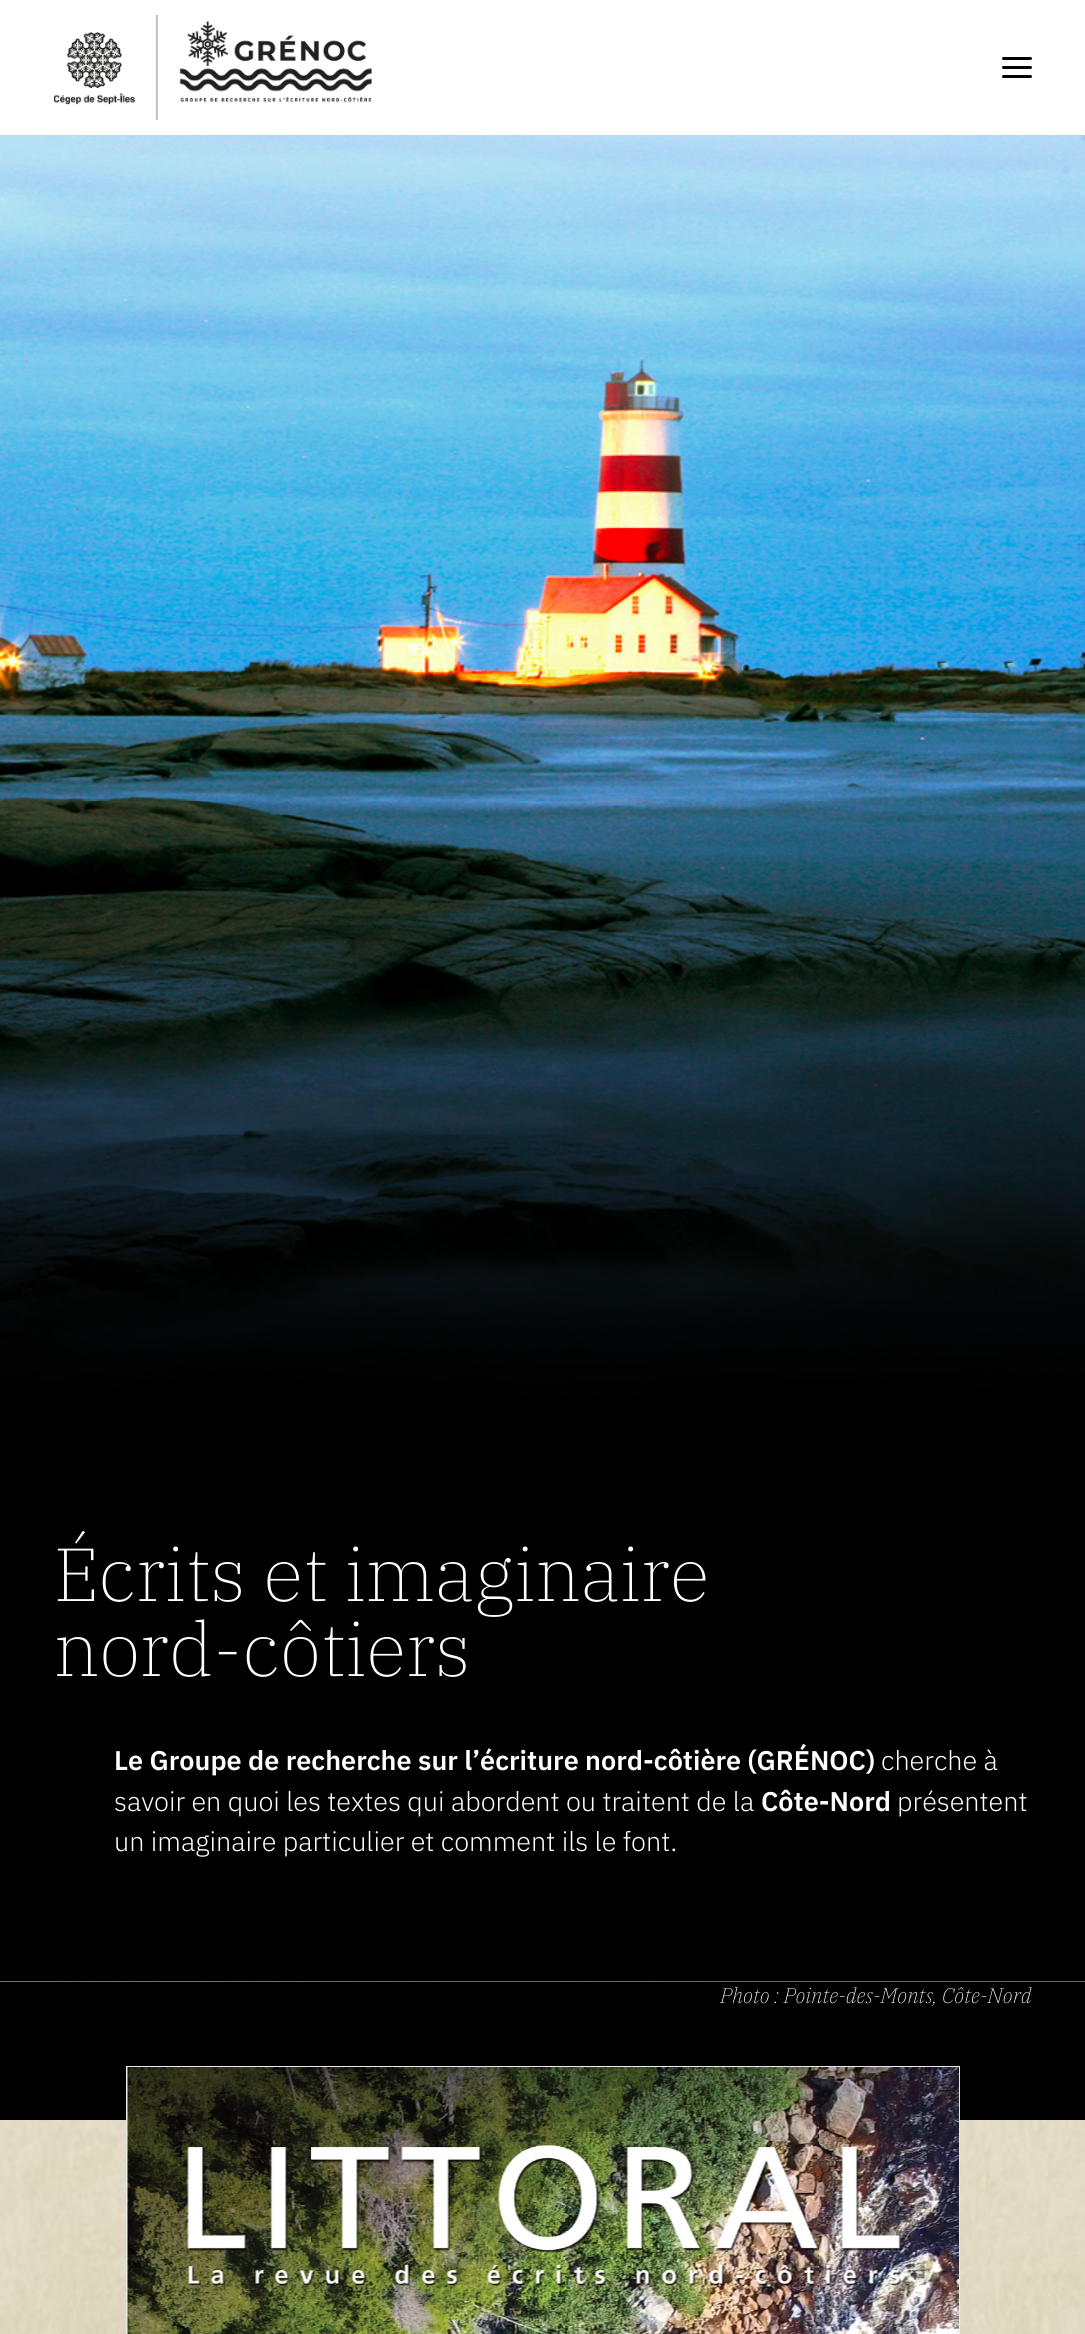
import math
import cairo



def rounded_rect(context, x, y, w, h, r):
    context.new_sub_path()
    for i, (u, v) in enumerate([(x + w - r, y + h - r), (x + r, y + h - r), (x + r, y + r), (x + w - r, y + r)]):
        context.arc(u, v, r, i * math.pi / 2, (i + 1) * math.pi / 2)
    context.close_path()


def draw_image(context, path, x, y, w, h):
    context.save()
    context.set_source_surface(cairo.ImageSurface.create_from_png(path), x, y)
    context.rectangle(x, y, w, h)
    context.fill()
    context.restore()


def draw(context):
    context.set_source_rgb(1, 1, 1)
    context.paint()
    draw_image(context, "images/1.png", 0, 1981, 1085, 1)
    draw_image(context, "images/2.png", 54, 15, 318, 105)
    context.set_source_rgb(0, 0, 0)
    rounded_rect(context, 1002, 66, 30, 3, 1.5)
    context.fill()
    rounded_rect(context, 1002, 57, 30, 3, 1.5)
    context.fill()
    rounded_rect(context, 1002, 75, 30, 3, 1.5)
    context.fill()
    draw_image(context, "images/3.png", 0, 135, 1085, 1847)
    context.rectangle(0, 1982, 1085, 138)
    context.fill()
    draw_image(context, "images/5.png", 0, 2120, 1085, 214)
    context.rectangle(127, 2067, 832, 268)
    context.set_source_rgb(234 / 255, 234 / 255, 234 / 255)
    context.stroke()
    draw_image(context, "images/4.png", 127, 2067, 832, 267)
    context.select_font_face("IBM Plex Serif ExtraLight")
    context.set_font_size(75)
    context.set_source_rgb(1, 1, 1)
    context.move_to(54, 1601)
    context.show_text("Écrits et imaginaire")
    context.move_to(54, 1676)
    context.show_text("nord-côtiers")
    context.select_font_face("IBM Plex Sans SemiBold")
    context.set_font_size(27)
    context.move_to(114, 1770)
    context.show_text("Le Groupe de recherche sur l’écriture nord-côtière (GRÉNOC)")
    context.select_font_face("IBM Plex Sans Light")
    context.move_to(881, 1770)
    context.show_text("cherche à")
    context.move_to(114, 1811)
    context.show_text("savoir en quoi les textes qui abordent ou traitent de la")
    context.select_font_face("IBM Plex Sans SemiBold")
    context.move_to(761, 1811)
    context.show_text("Côte-Nord")
    context.select_font_face("IBM Plex Sans Light")
    context.move_to(897, 1811)
    context.show_text("présentent")
    context.move_to(114, 1851)
    context.show_text("un imaginaire particulier et comment ils le font.")
    context.select_font_face("IBM Plex Serif ExtraLight", cairo.FontSlant.ITALIC)
    context.set_font_size(21)
    context.move_to(720, 2003)
    context.show_text("Photo : Pointe-des-Monts, Côte-Nord")


surface = cairo.ImageSurface(cairo.Format.RGB24, 1085, 2334)
context = cairo.Context(surface)
options = cairo.FontOptions()
options.set_hint_metrics(cairo.HintMetrics.OFF)
options.set_hint_style(cairo.HintStyle.NONE)
context.set_font_options(options)
context.set_miter_limit(4)
draw(context)
surface.write_to_png("out.png")
